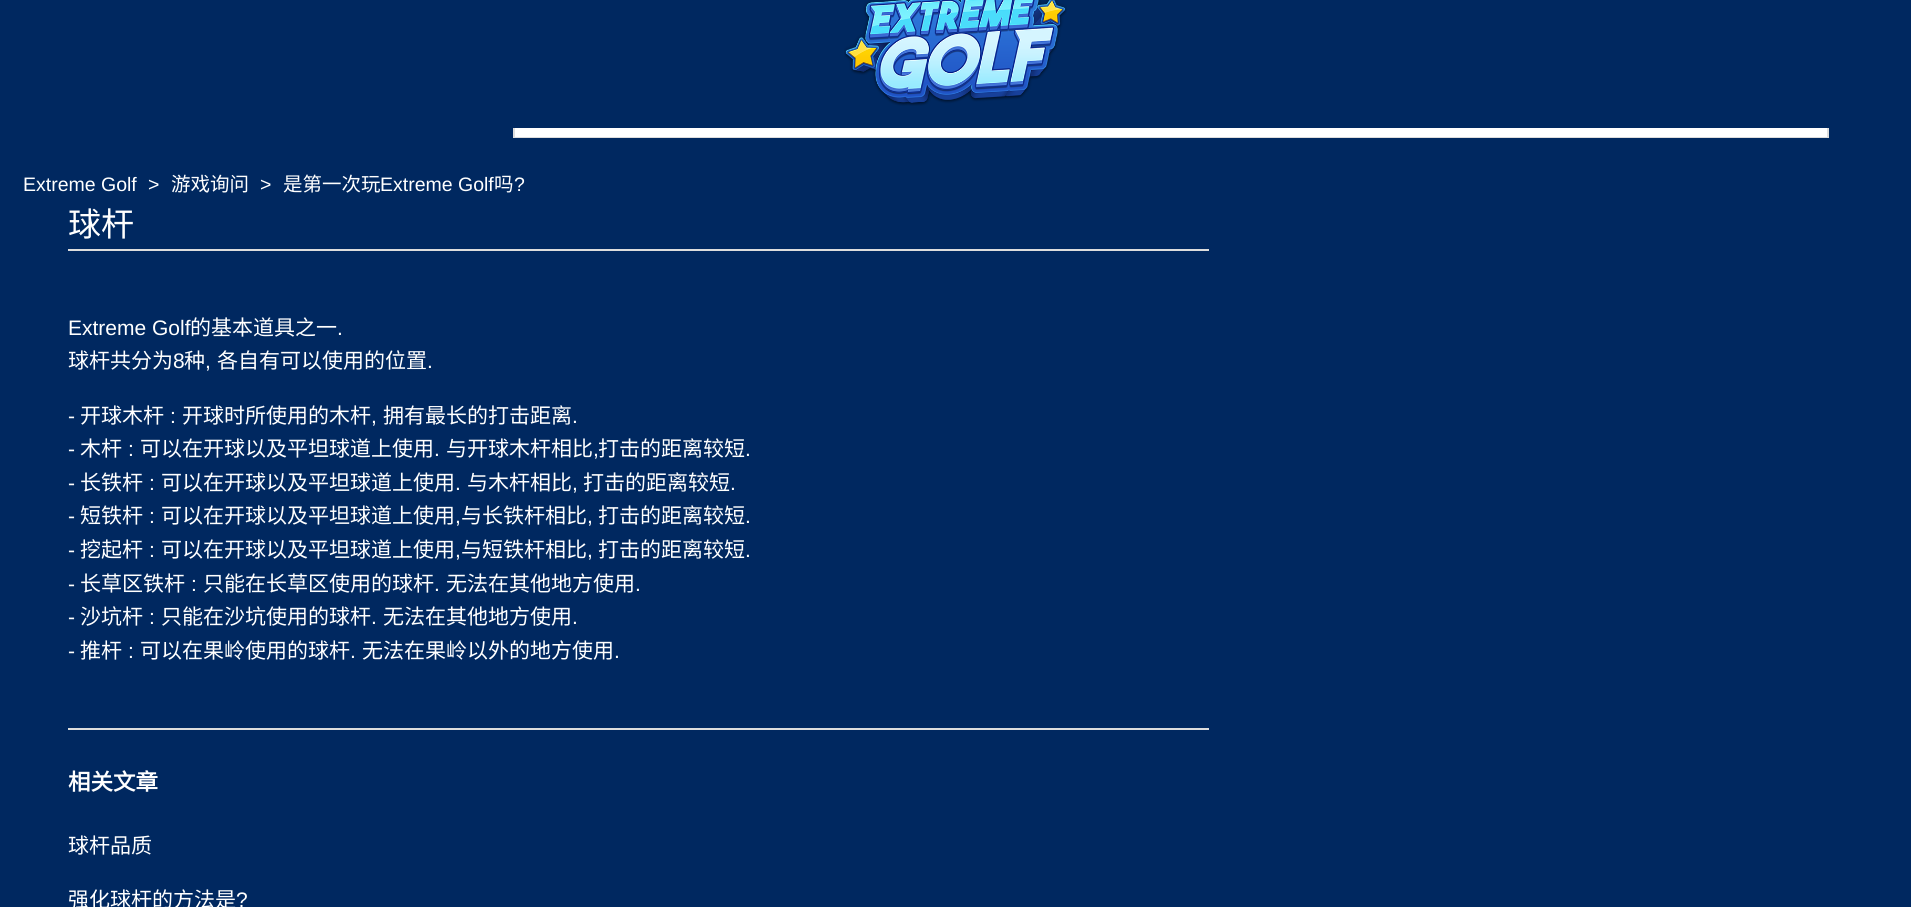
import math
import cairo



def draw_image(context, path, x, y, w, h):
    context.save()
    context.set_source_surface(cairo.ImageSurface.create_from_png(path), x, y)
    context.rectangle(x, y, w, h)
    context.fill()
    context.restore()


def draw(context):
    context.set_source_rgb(0, 40 / 255, 96 / 255)
    context.paint()
    context.rectangle(514, 76, 1314, 61)
    context.set_source_rgb(221 / 255, 221 / 255, 221 / 255)
    context.stroke()
    context.set_source_rgb(0, 40 / 255, 96 / 255)
    context.rectangle(513, 75, 1316, 53)
    context.fill()
    draw_image(context, "images/1.png", 844, 0, 223, 106)
    context.set_source_rgb(1, 1, 1)
    context.rectangle(515, 128, 1312, 9)
    context.fill()
    context.set_source_rgb(221 / 255, 221 / 255, 221 / 255)
    context.rectangle(68, 249, 1141, 2)
    context.fill()
    context.rectangle(68, 728, 1141, 2)
    context.fill()
    context.select_font_face("Liberation Sans")
    context.set_font_size(19.5)
    context.set_source_rgb(1, 1, 1)
    context.move_to(23, 191)
    context.show_text("Extreme Golf")
    context.move_to(148, 191)
    context.show_text(">")
    context.select_font_face("Noto Sans CJK SC")
    context.move_to(171, 191)
    context.show_text("游戏询问")
    context.select_font_face("Liberation Sans")
    context.move_to(260, 191)
    context.show_text(">")
    context.select_font_face("Noto Sans CJK SC")
    context.move_to(283, 191)
    context.show_text("是第一次玩")
    context.select_font_face("Liberation Sans")
    context.move_to(380, 191)
    context.show_text("Extreme Golf")
    context.select_font_face("Noto Sans CJK SC")
    context.move_to(494, 191)
    context.show_text("吗")
    context.select_font_face("Liberation Sans")
    context.move_to(514, 191)
    context.show_text("?")
    context.select_font_face("Noto Sans CJK SC")
    context.set_font_size(33)
    context.move_to(68, 236)
    context.show_text("球杆")
    context.select_font_face("Liberation Sans")
    context.set_font_size(21)
    context.move_to(68, 335)
    context.show_text("Extreme Golf")
    context.select_font_face("Noto Sans CJK SC")
    context.move_to(190, 335)
    context.show_text("的基本道具之一")
    context.select_font_face("Liberation Sans")
    context.move_to(337, 335)
    context.show_text(".")
    context.select_font_face("Noto Sans CJK SC")
    context.move_to(68, 368)
    context.show_text("球杆共分为")
    context.select_font_face("Liberation Sans")
    context.move_to(173, 368)
    context.show_text("8")
    context.select_font_face("Noto Sans CJK SC")
    context.move_to(184, 368)
    context.show_text("种")
    context.select_font_face("Liberation Sans")
    context.move_to(205, 368)
    context.show_text(",")
    context.select_font_face("Noto Sans CJK SC")
    context.move_to(217, 368)
    context.show_text("各自有可以使用的位置")
    context.select_font_face("Liberation Sans")
    context.move_to(427, 368)
    context.show_text(".")
    context.move_to(68, 423)
    context.show_text("-")
    context.select_font_face("Noto Sans CJK SC")
    context.move_to(80, 423)
    context.show_text("开球木杆")
    context.select_font_face("Liberation Sans")
    context.move_to(170, 423)
    context.show_text(":")
    context.select_font_face("Noto Sans CJK SC")
    context.move_to(182, 423)
    context.show_text("开球时所使用的木杆")
    context.move_to(383, 423)
    context.show_text("拥有最长的打击距离")
    context.select_font_face("Liberation Sans")
    context.move_to(371, 423)
    context.show_text(",")
    context.move_to(572, 423)
    context.show_text(".")
    context.move_to(68, 456)
    context.show_text("-")
    context.select_font_face("Noto Sans CJK SC")
    context.move_to(80, 456)
    context.show_text("木杆")
    context.select_font_face("Liberation Sans")
    context.move_to(128, 456)
    context.show_text(":")
    context.select_font_face("Noto Sans CJK SC")
    context.move_to(140, 456)
    context.show_text("可以在开球以及平坦球道上使用")
    context.move_to(446, 456)
    context.show_text("与开球木杆相比")
    context.move_to(598, 456)
    context.show_text("打击的距离较短")
    context.select_font_face("Liberation Sans")
    context.move_to(434, 456)
    context.show_text(".")
    context.move_to(593, 456)
    context.show_text(",")
    context.move_to(745, 456)
    context.show_text(".")
    context.move_to(68, 490)
    context.show_text("-")
    context.select_font_face("Noto Sans CJK SC")
    context.move_to(80, 490)
    context.show_text("长铁杆")
    context.select_font_face("Liberation Sans")
    context.move_to(149, 490)
    context.show_text(":")
    context.select_font_face("Noto Sans CJK SC")
    context.move_to(161, 490)
    context.show_text("可以在开球以及平坦球道上使用")
    context.move_to(467, 490)
    context.show_text("与木杆相比")
    context.move_to(583, 490)
    context.show_text("打击的距离较短")
    context.select_font_face("Liberation Sans")
    context.move_to(455, 490)
    context.show_text(".")
    context.move_to(572, 490)
    context.show_text(",")
    context.move_to(730, 490)
    context.show_text(".")
    context.move_to(68, 523)
    context.show_text("-")
    context.select_font_face("Noto Sans CJK SC")
    context.move_to(80, 523)
    context.show_text("短铁杆")
    context.select_font_face("Liberation Sans")
    context.move_to(149, 523)
    context.show_text(":")
    context.select_font_face("Noto Sans CJK SC")
    context.move_to(161, 523)
    context.show_text("可以在开球以及平坦球道上使用")
    context.move_to(461, 523)
    context.show_text("与长铁杆相比")
    context.move_to(598, 523)
    context.show_text("打击的距离较短")
    context.select_font_face("Liberation Sans")
    context.move_to(455, 523)
    context.show_text(",")
    context.move_to(587, 523)
    context.show_text(",")
    context.move_to(745, 523)
    context.show_text(".")
    context.move_to(68, 557)
    context.show_text("-")
    context.select_font_face("Noto Sans CJK SC")
    context.move_to(80, 557)
    context.show_text("挖起杆")
    context.select_font_face("Liberation Sans")
    context.move_to(149, 557)
    context.show_text(":")
    context.select_font_face("Noto Sans CJK SC")
    context.move_to(161, 557)
    context.show_text("可以在开球以及平坦球道上使用")
    context.move_to(461, 557)
    context.show_text("与短铁杆相比")
    context.move_to(598, 557)
    context.show_text("打击的距离较短")
    context.select_font_face("Liberation Sans")
    context.move_to(455, 557)
    context.show_text(",")
    context.move_to(587, 557)
    context.show_text(",")
    context.move_to(745, 557)
    context.show_text(".")
    context.move_to(68, 591)
    context.show_text("-")
    context.select_font_face("Noto Sans CJK SC")
    context.move_to(80, 591)
    context.show_text("长草区铁杆")
    context.select_font_face("Liberation Sans")
    context.move_to(191, 591)
    context.show_text(":")
    context.select_font_face("Noto Sans CJK SC")
    context.move_to(203, 591)
    context.show_text("只能在长草区使用的球杆")
    context.move_to(446, 591)
    context.show_text("无法在其他地方使用")
    context.select_font_face("Liberation Sans")
    context.move_to(434, 591)
    context.show_text(".")
    context.move_to(635, 591)
    context.show_text(".")
    context.move_to(68, 624)
    context.show_text("-")
    context.select_font_face("Noto Sans CJK SC")
    context.move_to(80, 624)
    context.show_text("沙坑杆")
    context.select_font_face("Liberation Sans")
    context.move_to(149, 624)
    context.show_text(":")
    context.select_font_face("Noto Sans CJK SC")
    context.move_to(161, 624)
    context.show_text("只能在沙坑使用的球杆")
    context.move_to(383, 624)
    context.show_text("无法在其他地方使用")
    context.select_font_face("Liberation Sans")
    context.move_to(371, 624)
    context.show_text(".")
    context.move_to(572, 624)
    context.show_text(".")
    context.move_to(68, 658)
    context.show_text("-")
    context.select_font_face("Noto Sans CJK SC")
    context.move_to(80, 658)
    context.show_text("推杆")
    context.select_font_face("Liberation Sans")
    context.move_to(128, 658)
    context.show_text(":")
    context.select_font_face("Noto Sans CJK SC")
    context.move_to(140, 658)
    context.show_text("可以在果岭使用的球杆")
    context.move_to(362, 658)
    context.show_text("无法在果岭以外的地方使用")
    context.select_font_face("Liberation Sans")
    context.move_to(350, 658)
    context.show_text(".")
    context.move_to(614, 658)
    context.show_text(".")
    context.select_font_face("Noto Sans CJK SC", cairo.FontSlant.NORMAL, cairo.FontWeight.BOLD)
    context.set_font_size(22.5)
    context.move_to(68, 790)
    context.show_text("相关文章")
    context.select_font_face("Noto Sans CJK SC")
    context.set_font_size(21)
    context.move_to(68, 853)
    context.show_text("球杆品质")
    context.move_to(68, 907)
    context.show_text("强化球杆的方法是")
    context.select_font_face("Liberation Sans")
    context.move_to(236, 907)
    context.show_text("?")


surface = cairo.ImageSurface(cairo.Format.RGB24, 1911, 907)
context = cairo.Context(surface)
options = cairo.FontOptions()
options.set_hint_metrics(cairo.HintMetrics.OFF)
options.set_hint_style(cairo.HintStyle.NONE)
context.set_font_options(options)
context.set_miter_limit(4)
draw(context)
surface.write_to_png("out.png")
